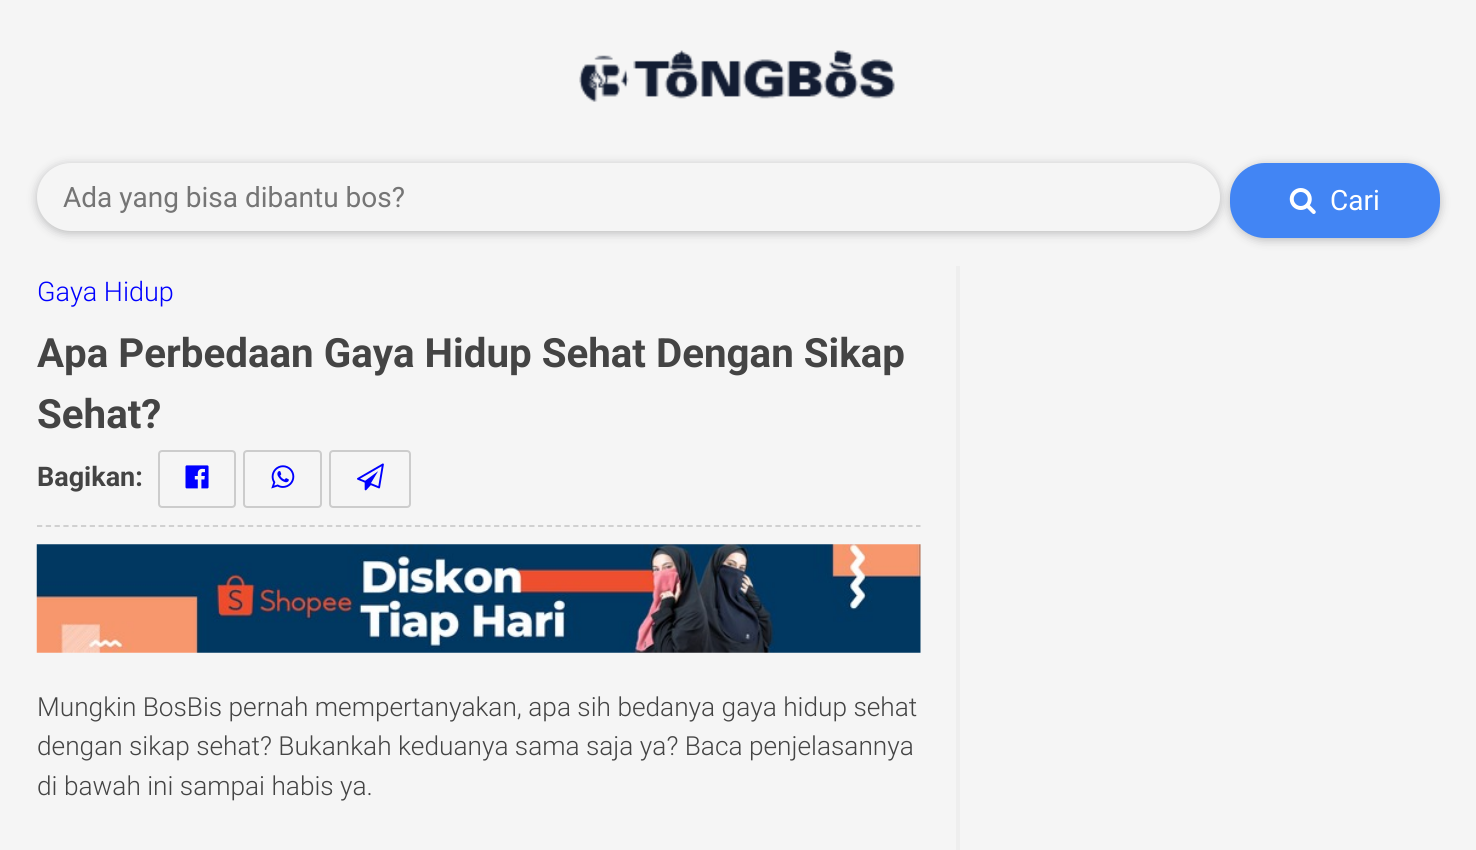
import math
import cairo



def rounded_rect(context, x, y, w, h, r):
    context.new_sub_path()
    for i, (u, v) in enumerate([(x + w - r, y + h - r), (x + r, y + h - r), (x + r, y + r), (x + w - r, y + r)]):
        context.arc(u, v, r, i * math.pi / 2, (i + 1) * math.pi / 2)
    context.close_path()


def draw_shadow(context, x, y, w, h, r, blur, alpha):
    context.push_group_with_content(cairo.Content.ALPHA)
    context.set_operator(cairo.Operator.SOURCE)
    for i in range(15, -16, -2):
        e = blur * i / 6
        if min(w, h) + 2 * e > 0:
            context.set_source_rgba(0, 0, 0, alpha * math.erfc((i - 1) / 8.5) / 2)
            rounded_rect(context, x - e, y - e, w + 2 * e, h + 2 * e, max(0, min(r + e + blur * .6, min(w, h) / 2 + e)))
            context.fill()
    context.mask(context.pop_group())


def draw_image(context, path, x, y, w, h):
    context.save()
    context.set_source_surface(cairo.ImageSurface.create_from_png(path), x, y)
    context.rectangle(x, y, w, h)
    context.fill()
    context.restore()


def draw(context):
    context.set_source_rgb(245 / 255, 245 / 255, 245 / 255)
    context.paint()
    draw_image(context, "images/1.png", 579, 50, 316, 52)
    context.set_source_rgb(32 / 255, 33 / 255, 36 / 255)
    draw_shadow(context, 1230, 165, 210, 75, 35, 5, 0.28)
    context.set_source_rgb(66 / 255, 133 / 255, 244 / 255)
    rounded_rect(context, 1230, 163, 210, 75, 35)
    context.fill()
    context.set_source_rgb(32 / 255, 33 / 255, 36 / 255)
    draw_shadow(context, 37, 165, 1183, 68, 34, 5, 0.28)
    context.set_source_rgb(245 / 255, 245 / 255, 245 / 255)
    rounded_rect(context, 37, 163, 1183, 68, 34)
    context.fill()
    draw_image(context, "images/2.png", 1289, 188, 27, 26)
    context.set_source_rgb(238 / 255, 238 / 255, 238 / 255)
    context.rectangle(956, 266, 4, 584)
    context.fill()
    context.new_path()
    context.move_to(37, 526)
    context.line_to(920.5, 526)
    context.set_source_rgb(204 / 255, 204 / 255, 204 / 255)
    context.set_line_width(1.8)
    context.set_dash([5.25, 3.54])
    context.stroke()
    rounded_rect(context, 159, 451, 76, 56, 3)
    context.set_line_width(2)
    context.set_dash([])
    context.stroke()
    draw_image(context, "images/3.png", 185, 465, 24, 24)
    rounded_rect(context, 244, 451, 77, 56, 3)
    context.stroke()
    draw_image(context, "images/4.png", 271, 465, 24, 24)
    rounded_rect(context, 330, 451, 80, 56, 3)
    context.stroke()
    draw_image(context, "images/5.png", 357, 463, 27, 28)
    draw_image(context, "images/6.png", 36, 544, 885, 109)
    context.select_font_face("Roboto")
    context.set_font_size(28)
    context.set_source_rgb(117 / 255, 117 / 255, 117 / 255)
    context.move_to(63, 207)
    context.show_text("Ada yang bisa dibantu bos?")
    context.set_source_rgb(1, 1, 1)
    context.move_to(1330, 210)
    context.show_text("Cari")
    context.select_font_face("Roboto Light")
    context.set_font_size(27)
    context.set_source_rgb(0, 0, 1)
    context.move_to(37, 301)
    context.show_text("Gaya Hidup")
    context.select_font_face("Roboto", cairo.FontSlant.NORMAL, cairo.FontWeight.BOLD)
    context.set_font_size(40.3)
    context.set_source_rgb(68 / 255, 68 / 255, 68 / 255)
    context.move_to(37, 367)
    context.show_text("Apa Perbedaan Gaya Hidup Sehat Dengan Sikap")
    context.move_to(37, 428)
    context.show_text("Sehat?")
    context.set_font_size(27)
    context.move_to(37, 486)
    context.show_text("Bagikan:")
    context.select_font_face("Roboto Light")
    context.set_font_size(26.25)
    context.move_to(37, 716)
    context.show_text("Mungkin BosBis pernah mempertanyakan, apa sih bedanya gaya hidup sehat")
    context.move_to(37, 755)
    context.show_text("dengan sikap sehat? Bukankah keduanya sama saja ya? Baca penjelasannya")
    context.move_to(37, 795)
    context.show_text("di bawah ini sampai habis ya.")


surface = cairo.ImageSurface(cairo.Format.RGB24, 1476, 850)
context = cairo.Context(surface)
options = cairo.FontOptions()
options.set_hint_metrics(cairo.HintMetrics.OFF)
options.set_hint_style(cairo.HintStyle.NONE)
context.set_font_options(options)
context.set_miter_limit(4)
draw(context)
surface.write_to_png("out.png")
